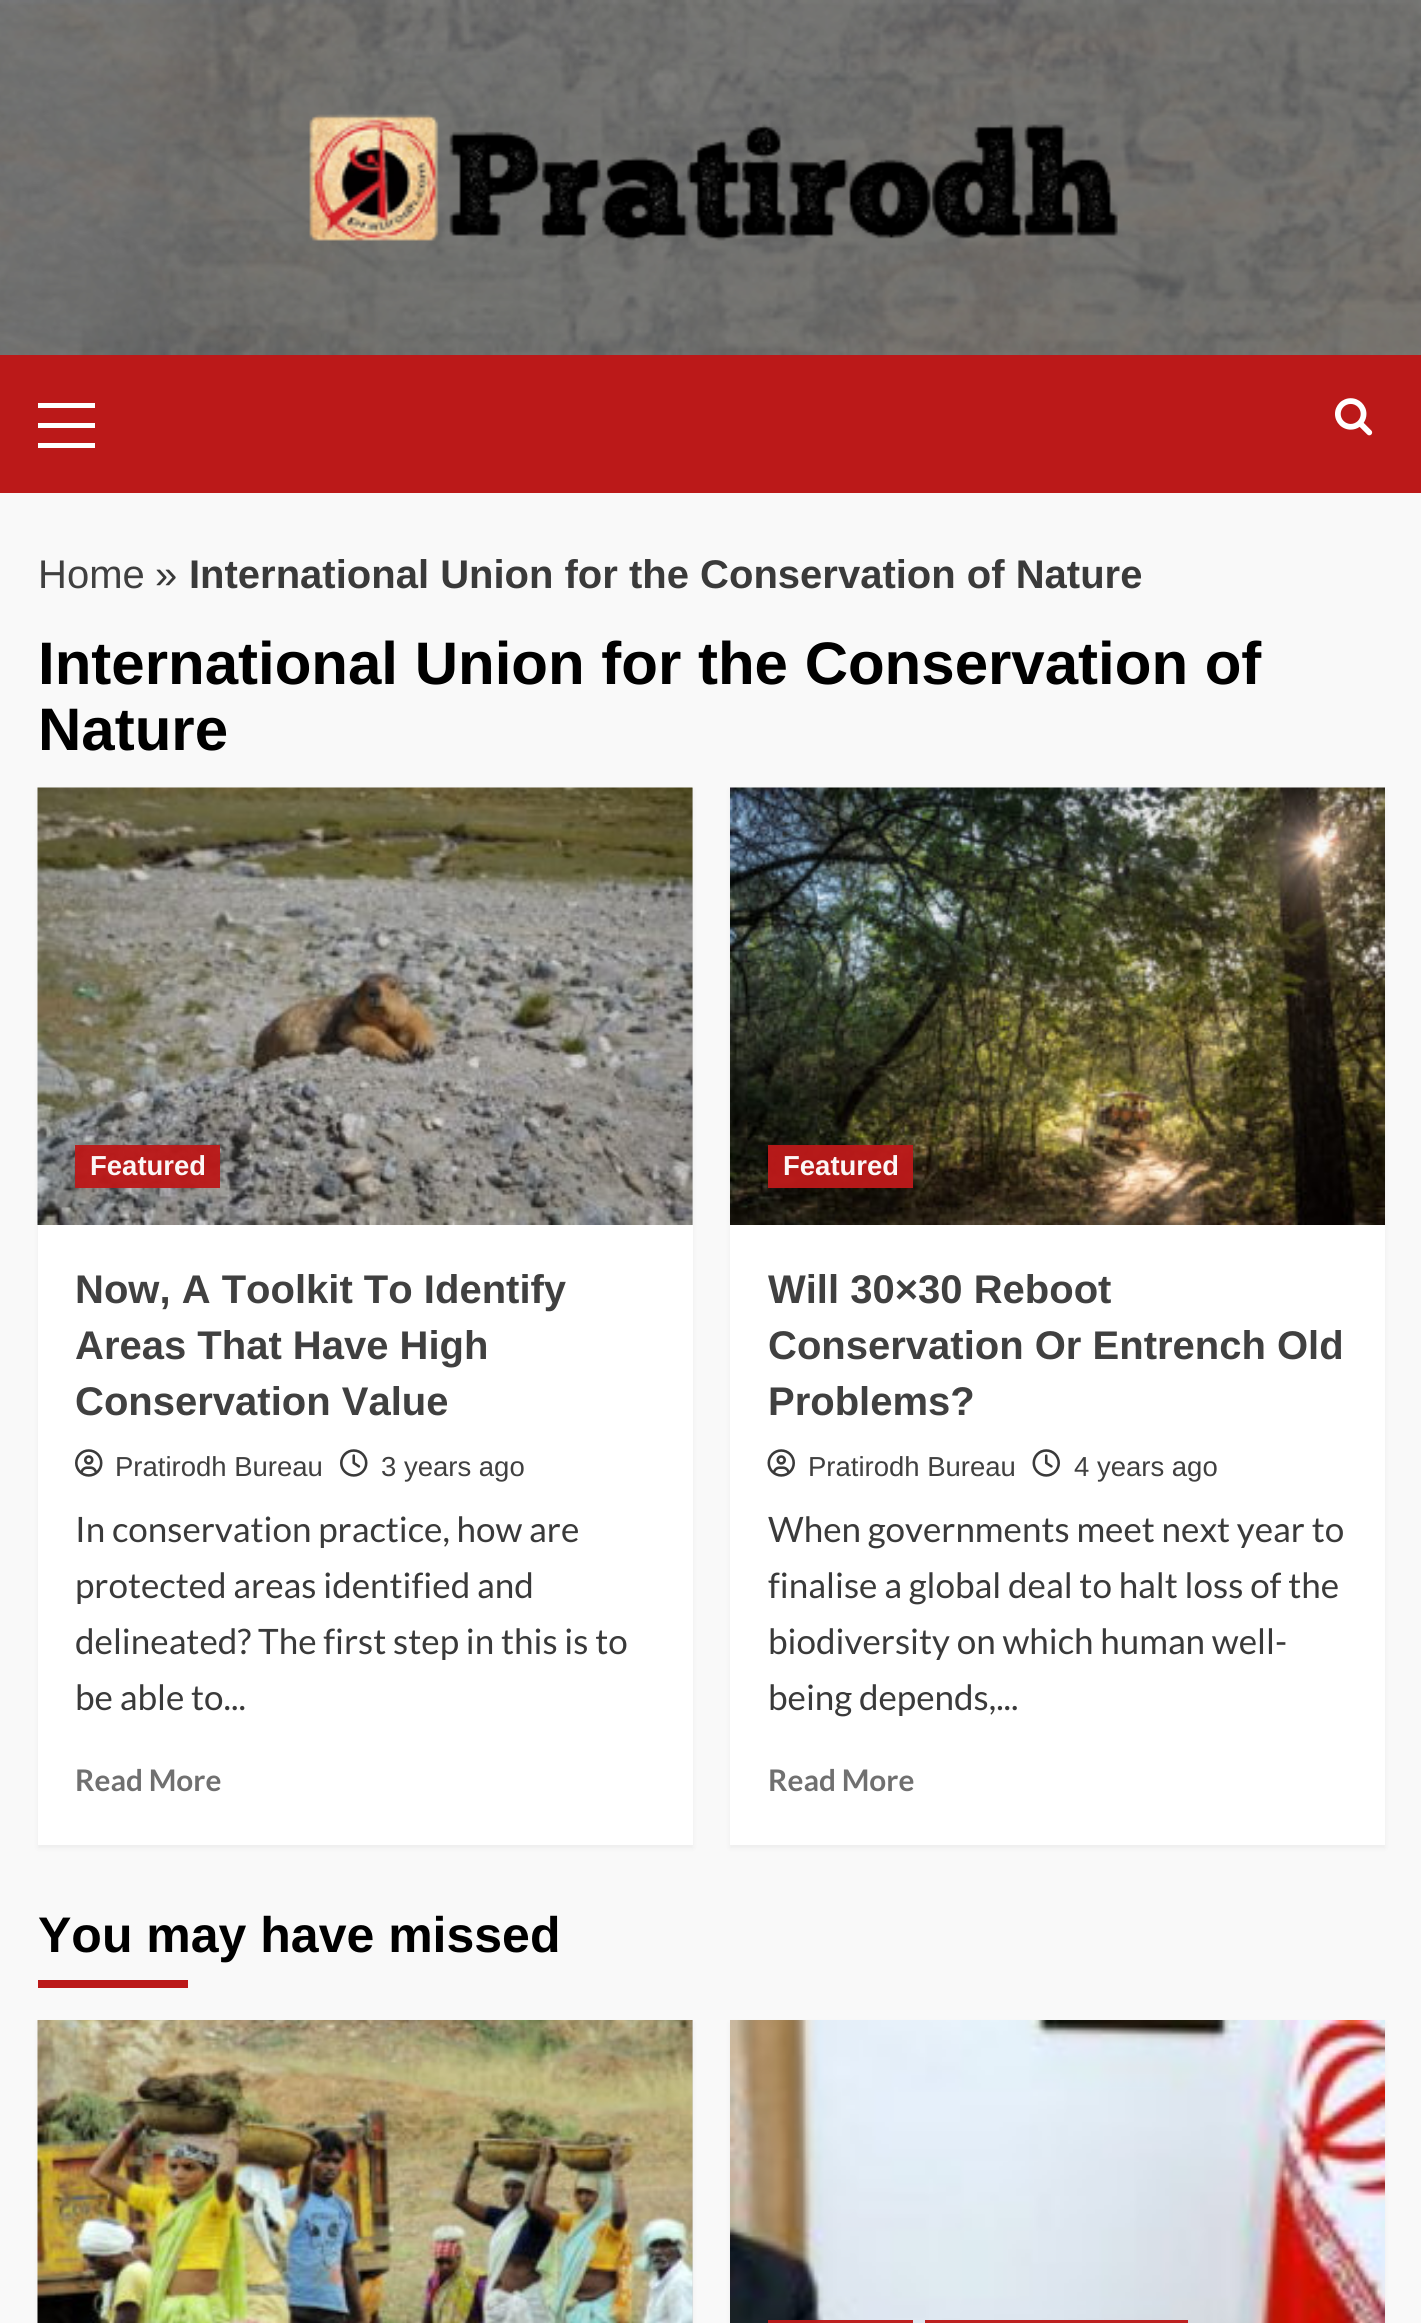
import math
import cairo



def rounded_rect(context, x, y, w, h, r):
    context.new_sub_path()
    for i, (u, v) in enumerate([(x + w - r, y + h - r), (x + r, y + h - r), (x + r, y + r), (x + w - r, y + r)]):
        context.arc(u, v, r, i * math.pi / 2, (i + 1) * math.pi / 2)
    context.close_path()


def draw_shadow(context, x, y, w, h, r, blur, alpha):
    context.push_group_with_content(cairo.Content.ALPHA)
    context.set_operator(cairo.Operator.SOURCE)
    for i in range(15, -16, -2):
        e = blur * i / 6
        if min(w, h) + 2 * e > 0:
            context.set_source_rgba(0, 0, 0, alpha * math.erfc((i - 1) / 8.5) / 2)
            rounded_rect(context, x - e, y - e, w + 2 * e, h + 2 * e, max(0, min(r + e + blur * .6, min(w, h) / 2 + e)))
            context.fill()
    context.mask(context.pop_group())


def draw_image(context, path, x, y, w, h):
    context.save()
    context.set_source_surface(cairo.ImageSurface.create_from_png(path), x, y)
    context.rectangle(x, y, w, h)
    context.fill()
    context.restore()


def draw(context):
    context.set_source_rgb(249 / 255, 249 / 255, 249 / 255)
    context.paint()
    draw_image(context, "images/1.png", 0, 0, 1421, 355)
    draw_image(context, "images/2.png", 309, 114, 809, 127)
    context.set_source_rgb(187 / 255, 25 / 255, 25 / 255)
    context.rectangle(0, 355, 1421, 138)
    context.fill()
    context.set_source_rgb(1, 1, 1)
    context.rectangle(38, 423, 57, 5)
    context.fill()
    context.rectangle(38, 403, 57, 5)
    context.fill()
    context.rectangle(38, 443, 57, 5)
    context.fill()
    draw_image(context, "images/3.png", 1335, 398, 38, 38)
    context.set_source_rgb(0, 0, 0)
    draw_shadow(context, 38, 790, 655, 1058, 0, 2.5, 0.05)
    context.set_source_rgb(1, 1, 1)
    context.rectangle(38, 1225, 655, 620)
    context.fill()
    context.set_source_rgb(216 / 255, 216 / 255, 216 / 255)
    context.rectangle(692, 788, 1, 437)
    context.fill()
    draw_image(context, "images/4.png", 37, 787, 656, 438)
    context.set_source_rgba(187 / 255, 25 / 255, 25 / 255, 0.96)
    context.rectangle(75, 1145, 145, 43)
    context.fill()
    draw_image(context, "images/5.png", 75, 1449, 28, 28)
    draw_image(context, "images/6.png", 340, 1449, 28, 28)
    context.set_source_rgb(0, 0, 0)
    draw_shadow(context, 730, 790, 655, 1058, 0, 2.5, 0.05)
    context.set_source_rgb(1, 1, 1)
    context.rectangle(730, 1225, 655, 620)
    context.fill()
    draw_image(context, "images/7.png", 730, 787, 655, 438)
    context.set_source_rgba(187 / 255, 25 / 255, 25 / 255, 0.96)
    context.rectangle(768, 1145, 145, 43)
    context.fill()
    draw_image(context, "images/8.png", 767, 1449, 28, 28)
    draw_image(context, "images/9.png", 1032, 1449, 28, 28)
    context.set_source_rgb(187 / 255, 25 / 255, 25 / 255)
    context.rectangle(38, 1980, 150, 8)
    context.fill()
    context.set_source_rgb(0, 0, 0)
    draw_shadow(context, 38, 2023, 655, 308, 0, 2.5, 0.05)
    context.set_source_rgb(216 / 255, 216 / 255, 216 / 255)
    context.rectangle(692, 2020, 1, 303)
    context.fill()
    draw_image(context, "images/10.png", 37, 2020, 656, 303)
    context.set_source_rgb(0, 0, 0)
    draw_shadow(context, 730, 2023, 655, 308, 0, 2.5, 0.05)
    draw_image(context, "images/11.png", 730, 2020, 655, 303)
    context.set_source_rgba(187 / 255, 25 / 255, 25 / 255, 0.96)
    context.rectangle(768, 2320, 145, 3)
    context.fill()
    context.rectangle(925, 2320, 263, 3)
    context.fill()
    context.select_font_face("Liberation Sans")
    context.set_font_size(40)
    context.set_source_rgb(64 / 255, 64 / 255, 64 / 255)
    context.move_to(38, 588)
    context.show_text("Home")
    context.set_source_rgb(58 / 255, 58 / 255, 58 / 255)
    context.move_to(155, 588)
    context.show_text("»")
    context.select_font_face("Liberation Sans", cairo.FontSlant.NORMAL, cairo.FontWeight.BOLD)
    context.move_to(189, 588)
    context.show_text("International Union for the Conservation of Nature")
    context.set_font_size(60)
    context.set_source_rgb(0, 0, 0)
    context.move_to(38, 684)
    context.show_text("International Union for the Conservation of")
    context.move_to(38, 750)
    context.show_text("Nature")
    context.set_font_size(27.5)
    context.set_source_rgb(252 / 255, 246 / 255, 246 / 255)
    context.move_to(90, 1175)
    context.show_text("Featured")
    context.set_font_size(40)
    context.set_source_rgb(64 / 255, 64 / 255, 64 / 255)
    context.move_to(75, 1303)
    context.show_text("Now, A Toolkit To Identify")
    context.move_to(75, 1359)
    context.show_text("Areas That Have High")
    context.move_to(75, 1415)
    context.show_text("Conservation Value")
    context.select_font_face("Liberation Sans")
    context.set_font_size(27.5)
    context.move_to(115, 1476)
    context.show_text("Pratirodh Bureau")
    context.move_to(381, 1476)
    context.show_text("3 years ago")
    context.select_font_face("Lato")
    context.set_font_size(35)
    context.set_source_rgb(58 / 255, 58 / 255, 58 / 255)
    context.move_to(75, 1542)
    context.show_text("In conservation practice, how are")
    context.move_to(75, 1598)
    context.show_text("protected areas identified and")
    context.move_to(75, 1654)
    context.show_text("delineated? The first step in this is to")
    context.move_to(75, 1710)
    context.show_text("be able to...")
    context.select_font_face("Lato", cairo.FontSlant.NORMAL, cairo.FontWeight.BOLD)
    context.set_font_size(29.75)
    context.set_source_rgb(112 / 255, 112 / 255, 112 / 255)
    context.move_to(75, 1791)
    context.show_text("Read More")
    context.select_font_face("Liberation Sans", cairo.FontSlant.NORMAL, cairo.FontWeight.BOLD)
    context.set_font_size(27.5)
    context.set_source_rgb(252 / 255, 246 / 255, 246 / 255)
    context.move_to(783, 1175)
    context.show_text("Featured")
    context.set_font_size(40)
    context.set_source_rgb(64 / 255, 64 / 255, 64 / 255)
    context.move_to(768, 1303)
    context.show_text("Will 30×30 Reboot")
    context.move_to(768, 1359)
    context.show_text("Conservation Or Entrench Old")
    context.move_to(768, 1415)
    context.show_text("Problems?")
    context.select_font_face("Liberation Sans")
    context.set_font_size(27.5)
    context.move_to(808, 1476)
    context.show_text("Pratirodh Bureau")
    context.move_to(1074, 1476)
    context.show_text("4 years ago")
    context.select_font_face("Lato")
    context.set_font_size(35)
    context.set_source_rgb(58 / 255, 58 / 255, 58 / 255)
    context.move_to(768, 1542)
    context.show_text("When governments meet next year to")
    context.move_to(768, 1598)
    context.show_text("finalise a global deal to halt loss of the")
    context.move_to(768, 1654)
    context.show_text("biodiversity on which human well-")
    context.move_to(768, 1710)
    context.show_text("being depends,...")
    context.select_font_face("Lato", cairo.FontSlant.NORMAL, cairo.FontWeight.BOLD)
    context.set_font_size(29.75)
    context.set_source_rgb(112 / 255, 112 / 255, 112 / 255)
    context.move_to(768, 1791)
    context.show_text("Read More")
    context.select_font_face("Liberation Sans", cairo.FontSlant.NORMAL, cairo.FontWeight.BOLD)
    context.set_font_size(50)
    context.set_source_rgb(0, 0, 0)
    context.move_to(38, 1952)
    context.show_text("You may have missed")


surface = cairo.ImageSurface(cairo.Format.RGB24, 1421, 2323)
context = cairo.Context(surface)
options = cairo.FontOptions()
options.set_hint_metrics(cairo.HintMetrics.OFF)
options.set_hint_style(cairo.HintStyle.NONE)
context.set_font_options(options)
context.set_miter_limit(4)
draw(context)
surface.write_to_png("out.png")
